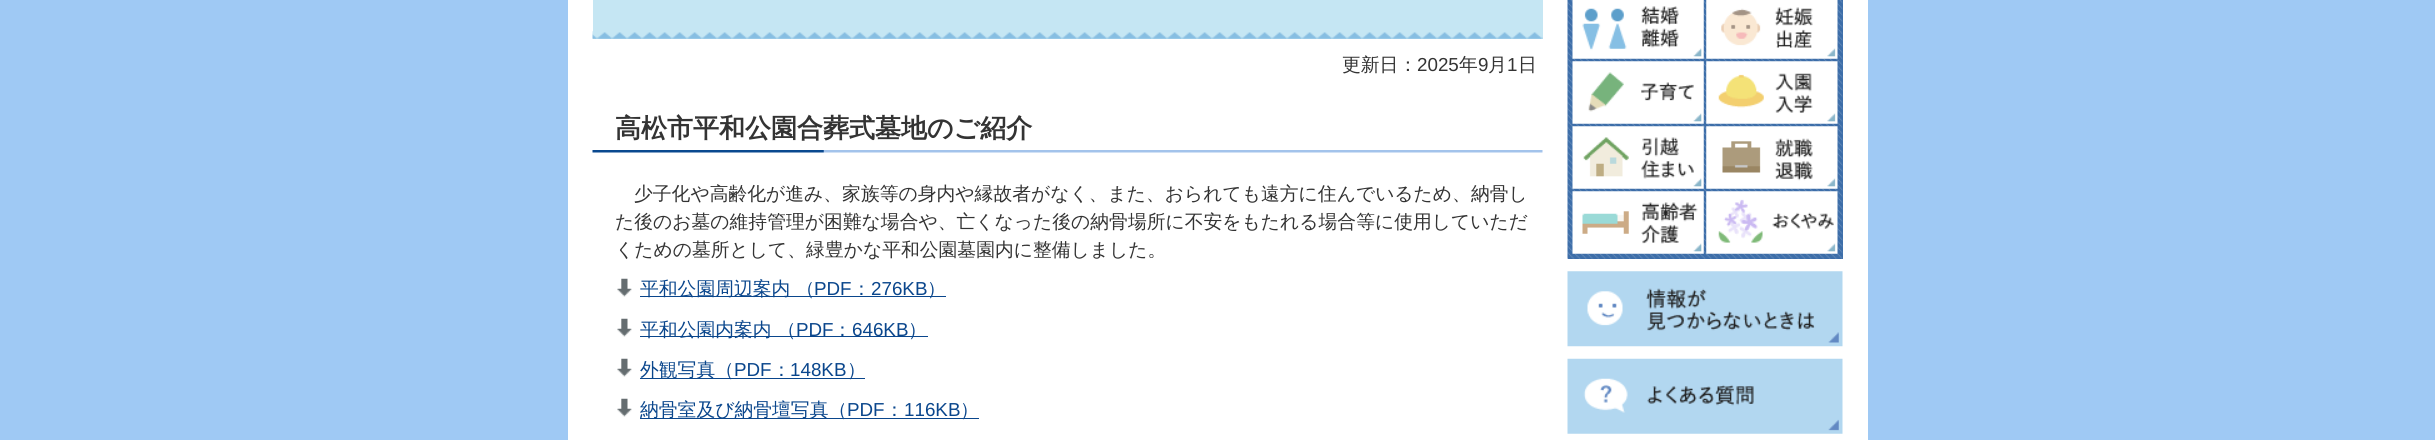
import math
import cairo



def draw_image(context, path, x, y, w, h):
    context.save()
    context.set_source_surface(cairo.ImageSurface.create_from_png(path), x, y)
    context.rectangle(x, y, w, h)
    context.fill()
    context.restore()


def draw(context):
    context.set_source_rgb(159 / 255, 201 / 255, 244 / 255)
    context.paint()
    context.set_source_rgb(1, 1, 1)
    context.rectangle(568, 0, 1300, 440)
    context.fill()
    context.set_source_rgb(197 / 255, 230 / 255, 243 / 255)
    context.rectangle(593, 0, 950, 39)
    context.fill()
    draw_image(context, "images/1.png", 592, 31, 951, 8)
    draw_image(context, "images/2.png", 592, 150, 951, 3)
    draw_image(context, "images/3.png", 617, 278, 15, 19)
    context.set_source_rgb(10 / 255, 70 / 255, 140 / 255)
    context.rectangle(640, 296, 306, 1)
    context.fill()
    draw_image(context, "images/3.png", 617, 318, 15, 19)
    context.rectangle(640, 336, 288, 1)
    context.fill()
    draw_image(context, "images/3.png", 617, 358, 15, 19)
    context.rectangle(640, 378, 225, 1)
    context.fill()
    draw_image(context, "images/3.png", 617, 398, 15, 19)
    context.rectangle(640, 418, 339, 1)
    context.fill()
    context.set_source_rgb(61 / 255, 110 / 255, 169 / 255)
    context.rectangle(1568, 0, 275, 259)
    context.fill()
    draw_image(context, "images/4.png", 1567, 0, 276, 259)
    draw_image(context, "images/5.png", 1572, 0, 132, 59)
    draw_image(context, "images/6.png", 1706, 0, 132, 59)
    draw_image(context, "images/7.png", 1572, 61, 132, 63)
    draw_image(context, "images/8.png", 1706, 61, 132, 63)
    draw_image(context, "images/9.png", 1572, 126, 132, 63)
    draw_image(context, "images/10.png", 1706, 126, 132, 63)
    draw_image(context, "images/11.png", 1572, 191, 132, 63)
    draw_image(context, "images/12.png", 1706, 191, 132, 63)
    draw_image(context, "images/13.png", 1567, 271, 276, 76)
    draw_image(context, "images/14.png", 1567, 358, 276, 76)
    context.select_font_face("WenQuanYi Zen Hei Medium")
    context.set_font_size(18.8)
    context.set_source_rgb(51 / 255, 51 / 255, 51 / 255)
    context.move_to(1342, 71)
    context.show_text("更新日：")
    context.select_font_face("Liberation Sans")
    context.move_to(1417, 71)
    context.show_text("2025")
    context.select_font_face("WenQuanYi Zen Hei Medium")
    context.move_to(1459, 71)
    context.show_text("年")
    context.select_font_face("Liberation Sans")
    context.move_to(1478, 71)
    context.show_text("9")
    context.select_font_face("WenQuanYi Zen Hei Medium")
    context.move_to(1488, 71)
    context.show_text("月")
    context.select_font_face("Liberation Sans")
    context.move_to(1507, 71)
    context.show_text("1")
    context.select_font_face("WenQuanYi Zen Hei Medium")
    context.move_to(1518, 71)
    context.show_text("日")
    context.select_font_face("WenQuanYi Zen Hei", cairo.FontSlant.NORMAL, cairo.FontWeight.BOLD)
    context.set_font_size(26)
    context.move_to(615, 137)
    context.show_text("高松市平和公園合葬式墓地のご紹介")
    context.select_font_face("WenQuanYi Zen Hei Medium")
    context.set_font_size(18.8)
    context.move_to(634, 200)
    context.show_text("少子化や高齢化が進み、家族等の身内や縁故者がなく、また、おられても遠方に住んでいるため、納骨し")
    context.move_to(615, 228)
    context.show_text("た後のお墓の維持管理が困難な場合や、亡くなった後の納骨場所に不安をもたれる場合等に使用していただ")
    context.move_to(615, 256)
    context.show_text("くための墓所として、緑豊かな平和公園墓園内に整備しました。")
    context.set_source_rgb(10 / 255, 70 / 255, 140 / 255)
    context.move_to(640, 295)
    context.show_text("平和公園周辺案内 （")
    context.select_font_face("Liberation Sans")
    context.move_to(814, 295)
    context.show_text("PDF")
    context.select_font_face("WenQuanYi Zen Hei Medium")
    context.move_to(852, 295)
    context.show_text("：")
    context.select_font_face("Liberation Sans")
    context.move_to(871, 295)
    context.show_text("276KB")
    context.select_font_face("WenQuanYi Zen Hei Medium")
    context.move_to(927, 295)
    context.show_text("）")
    context.move_to(640, 336)
    context.show_text("平和公園内案内 （")
    context.select_font_face("Liberation Sans")
    context.move_to(796, 336)
    context.show_text("PDF")
    context.select_font_face("WenQuanYi Zen Hei Medium")
    context.move_to(833, 336)
    context.show_text("：")
    context.select_font_face("Liberation Sans")
    context.move_to(852, 336)
    context.show_text("646KB")
    context.select_font_face("WenQuanYi Zen Hei Medium")
    context.move_to(908, 336)
    context.show_text("）")
    context.move_to(640, 376)
    context.show_text("外観写真（")
    context.select_font_face("Liberation Sans")
    context.move_to(734, 376)
    context.show_text("PDF")
    context.select_font_face("WenQuanYi Zen Hei Medium")
    context.move_to(772, 376)
    context.show_text("：")
    context.select_font_face("Liberation Sans")
    context.move_to(790, 376)
    context.show_text("148KB")
    context.select_font_face("WenQuanYi Zen Hei Medium")
    context.move_to(847, 376)
    context.show_text("）")
    context.move_to(640, 416)
    context.show_text("納骨室及び納骨壇写真（")
    context.select_font_face("Liberation Sans")
    context.move_to(847, 416)
    context.show_text("PDF")
    context.select_font_face("WenQuanYi Zen Hei Medium")
    context.move_to(885, 416)
    context.show_text("：")
    context.select_font_face("Liberation Sans")
    context.move_to(904, 416)
    context.show_text("116KB")
    context.select_font_face("WenQuanYi Zen Hei Medium")
    context.move_to(960, 416)
    context.show_text("）")


surface = cairo.ImageSurface(cairo.Format.RGB24, 2435, 440)
context = cairo.Context(surface)
options = cairo.FontOptions()
options.set_hint_metrics(cairo.HintMetrics.OFF)
options.set_hint_style(cairo.HintStyle.NONE)
context.set_font_options(options)
context.set_miter_limit(4)
draw(context)
surface.write_to_png("out.png")
